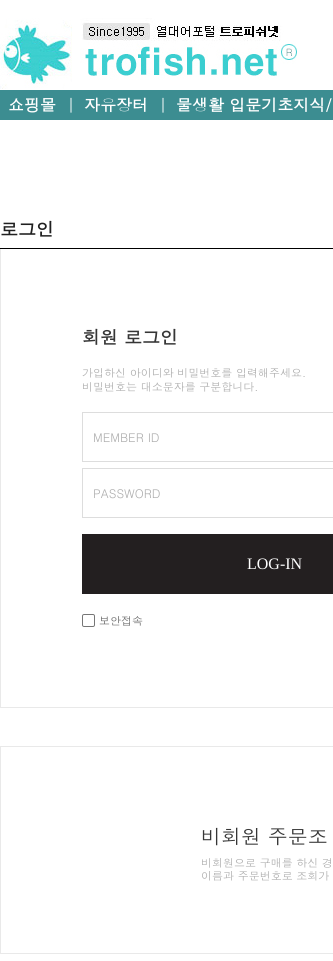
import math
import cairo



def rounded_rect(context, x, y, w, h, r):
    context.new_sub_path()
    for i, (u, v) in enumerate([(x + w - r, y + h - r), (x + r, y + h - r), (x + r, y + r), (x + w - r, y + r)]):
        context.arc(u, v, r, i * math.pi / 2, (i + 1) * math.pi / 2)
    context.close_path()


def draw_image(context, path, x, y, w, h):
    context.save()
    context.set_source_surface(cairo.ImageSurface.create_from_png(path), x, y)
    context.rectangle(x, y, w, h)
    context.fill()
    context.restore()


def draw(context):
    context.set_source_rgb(1, 1, 1)
    context.paint()
    draw_image(context, "images/1.png", 0, 18, 297, 71)
    context.set_source_rgb(60 / 255, 141 / 255, 145 / 255)
    context.rectangle(0, 90, 333, 30)
    context.fill()
    context.set_source_rgb(0, 0, 0)
    context.rectangle(0, 248, 333, 1)
    context.fill()
    context.set_source_rgb(233 / 255, 233 / 255, 233 / 255)
    context.rectangle(0, 707, 333, 1)
    context.fill()
    context.rectangle(0, 249, 1, 459)
    context.fill()
    context.rectangle(82.5, 412.5, 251, 49)
    context.set_source_rgb(221 / 255, 221 / 255, 221 / 255)
    context.set_line_width(1)
    context.stroke()
    context.rectangle(82.5, 468.5, 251, 49)
    context.stroke()
    context.set_source_rgb(35 / 255, 31 / 255, 32 / 255)
    context.rectangle(82, 534, 251, 60)
    context.fill()
    rounded_rect(context, 82.5, 614.5, 12, 12, 1.5)
    context.set_source_rgb(118 / 255, 118 / 255, 118 / 255)
    context.stroke()
    context.rectangle(0.5, 746.5, 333, 207)
    context.set_source_rgb(233 / 255, 233 / 255, 233 / 255)
    context.stroke()
    context.select_font_face("Dotum", cairo.FontSlant.NORMAL, cairo.FontWeight.BOLD)
    context.set_font_size(16)
    context.set_source_rgb(1, 1, 1)
    context.move_to(8, 111)
    context.show_text("쇼핑몰")
    context.select_font_face("Dotum")
    context.move_to(67, 111)
    context.show_text("|")
    context.select_font_face("Dotum", cairo.FontSlant.NORMAL, cairo.FontWeight.BOLD)
    context.move_to(84, 111)
    context.show_text("자유장터")
    context.select_font_face("Dotum")
    context.move_to(159, 111)
    context.show_text("|")
    context.select_font_face("Dotum", cairo.FontSlant.NORMAL, cairo.FontWeight.BOLD)
    context.move_to(176, 111)
    context.show_text("물생활 입문기초지식/")
    context.set_font_size(18)
    context.set_source_rgb(32 / 255, 32 / 255, 32 / 255)
    context.move_to(0, 236)
    context.show_text("로그인")
    context.set_source_rgb(54 / 255, 54 / 255, 54 / 255)
    context.move_to(82, 344)
    context.show_text("회원 로그인")
    context.select_font_face("Dotum")
    context.set_font_size(11)
    context.set_source_rgb(173 / 255, 173 / 255, 173 / 255)
    context.move_to(82, 377)
    context.show_text("가입하신 아이디와 비밀번호를 입력해주세요.")
    context.move_to(82, 391)
    context.show_text("비밀번호는 대소문자를 구분합니다.")
    context.set_font_size(12)
    context.move_to(93, 442)
    context.show_text("MEMBER ID")
    context.move_to(93, 498)
    context.show_text("PASSWORD")
    context.select_font_face("Liberation Serif")
    context.set_font_size(16)
    context.set_source_rgb(1, 1, 1)
    context.move_to(247, 569)
    context.show_text("LOG-IN")
    context.select_font_face("Dotum")
    context.set_font_size(11)
    context.set_source_rgb(102 / 255, 102 / 255, 102 / 255)
    context.move_to(99, 625)
    context.show_text("보안접속")
    context.set_font_size(20)
    context.set_source_rgb(54 / 255, 54 / 255, 54 / 255)
    context.move_to(201, 844)
    context.show_text("비회원 주문조")
    context.set_font_size(11)
    context.set_source_rgb(173 / 255, 173 / 255, 173 / 255)
    context.move_to(201, 867)
    context.show_text("비회원으로 구매를 하신 경")
    context.move_to(201, 880)
    context.show_text("이름과 주문번호로 조회가")


surface = cairo.ImageSurface(cairo.Format.RGB24, 333, 961)
context = cairo.Context(surface)
options = cairo.FontOptions()
options.set_hint_metrics(cairo.HintMetrics.OFF)
options.set_hint_style(cairo.HintStyle.NONE)
context.set_font_options(options)
context.set_miter_limit(4)
draw(context)
surface.write_to_png("out.png")
